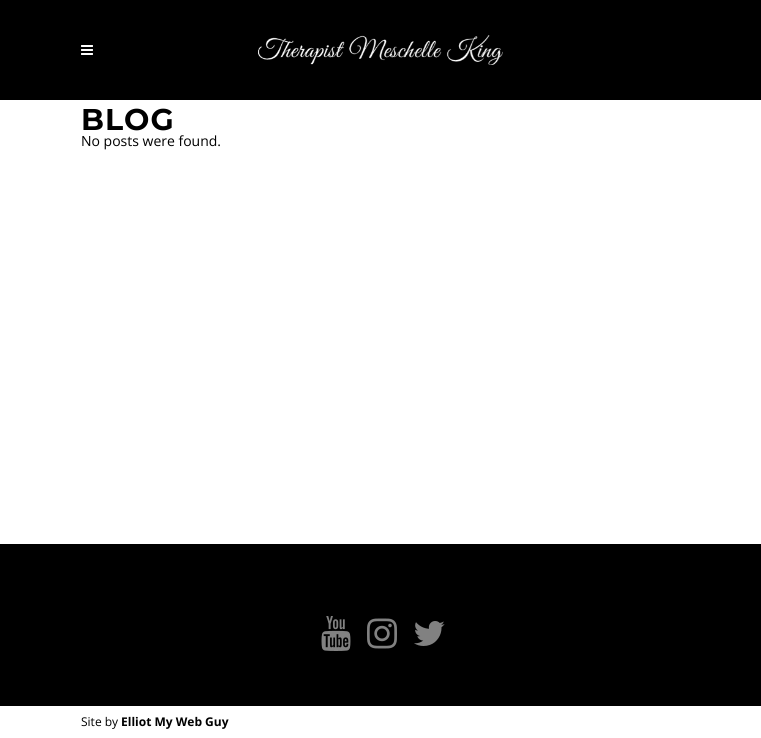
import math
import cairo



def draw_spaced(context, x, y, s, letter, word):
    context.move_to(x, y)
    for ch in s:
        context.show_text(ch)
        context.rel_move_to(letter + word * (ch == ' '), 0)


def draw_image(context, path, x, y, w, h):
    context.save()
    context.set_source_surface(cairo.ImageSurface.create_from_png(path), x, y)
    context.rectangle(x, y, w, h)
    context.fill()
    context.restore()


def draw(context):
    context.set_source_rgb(1, 1, 1)
    context.paint()
    context.set_source_rgb(0, 0, 0)
    context.rectangle(0, 0, 761, 100)
    context.fill()
    draw_image(context, "images/1.png", 81, 45, 12, 10)
    draw_image(context, "images/2.png", 258, 35, 245, 30)
    context.rectangle(0, 544, 761, 162)
    context.fill()
    draw_image(context, "images/3.png", 321, 616, 30, 35)
    draw_image(context, "images/4.png", 367, 618, 30, 31)
    draw_image(context, "images/5.png", 414, 621, 31, 25)
    context.select_font_face("Montserrat", cairo.FontSlant.NORMAL, cairo.FontWeight.BOLD)
    context.set_font_size(30)
    draw_spaced(context, 81, 130, "BLOG", 1, 0)
    context.select_font_face("Open Sans")
    context.set_font_size(14)
    context.move_to(81, 146)
    context.show_text("No posts were found.")
    context.set_font_size(12)
    context.move_to(81, 726)
    context.show_text("Site by")
    context.select_font_face("Open Sans", cairo.FontSlant.NORMAL, cairo.FontWeight.BOLD)
    context.move_to(121, 726)
    context.show_text("Elliot My Web Guy")


surface = cairo.ImageSurface(cairo.Format.RGB24, 761, 738)
context = cairo.Context(surface)
options = cairo.FontOptions()
options.set_hint_metrics(cairo.HintMetrics.OFF)
options.set_hint_style(cairo.HintStyle.NONE)
context.set_font_options(options)
context.set_miter_limit(4)
draw(context)
surface.write_to_png("out.png")
